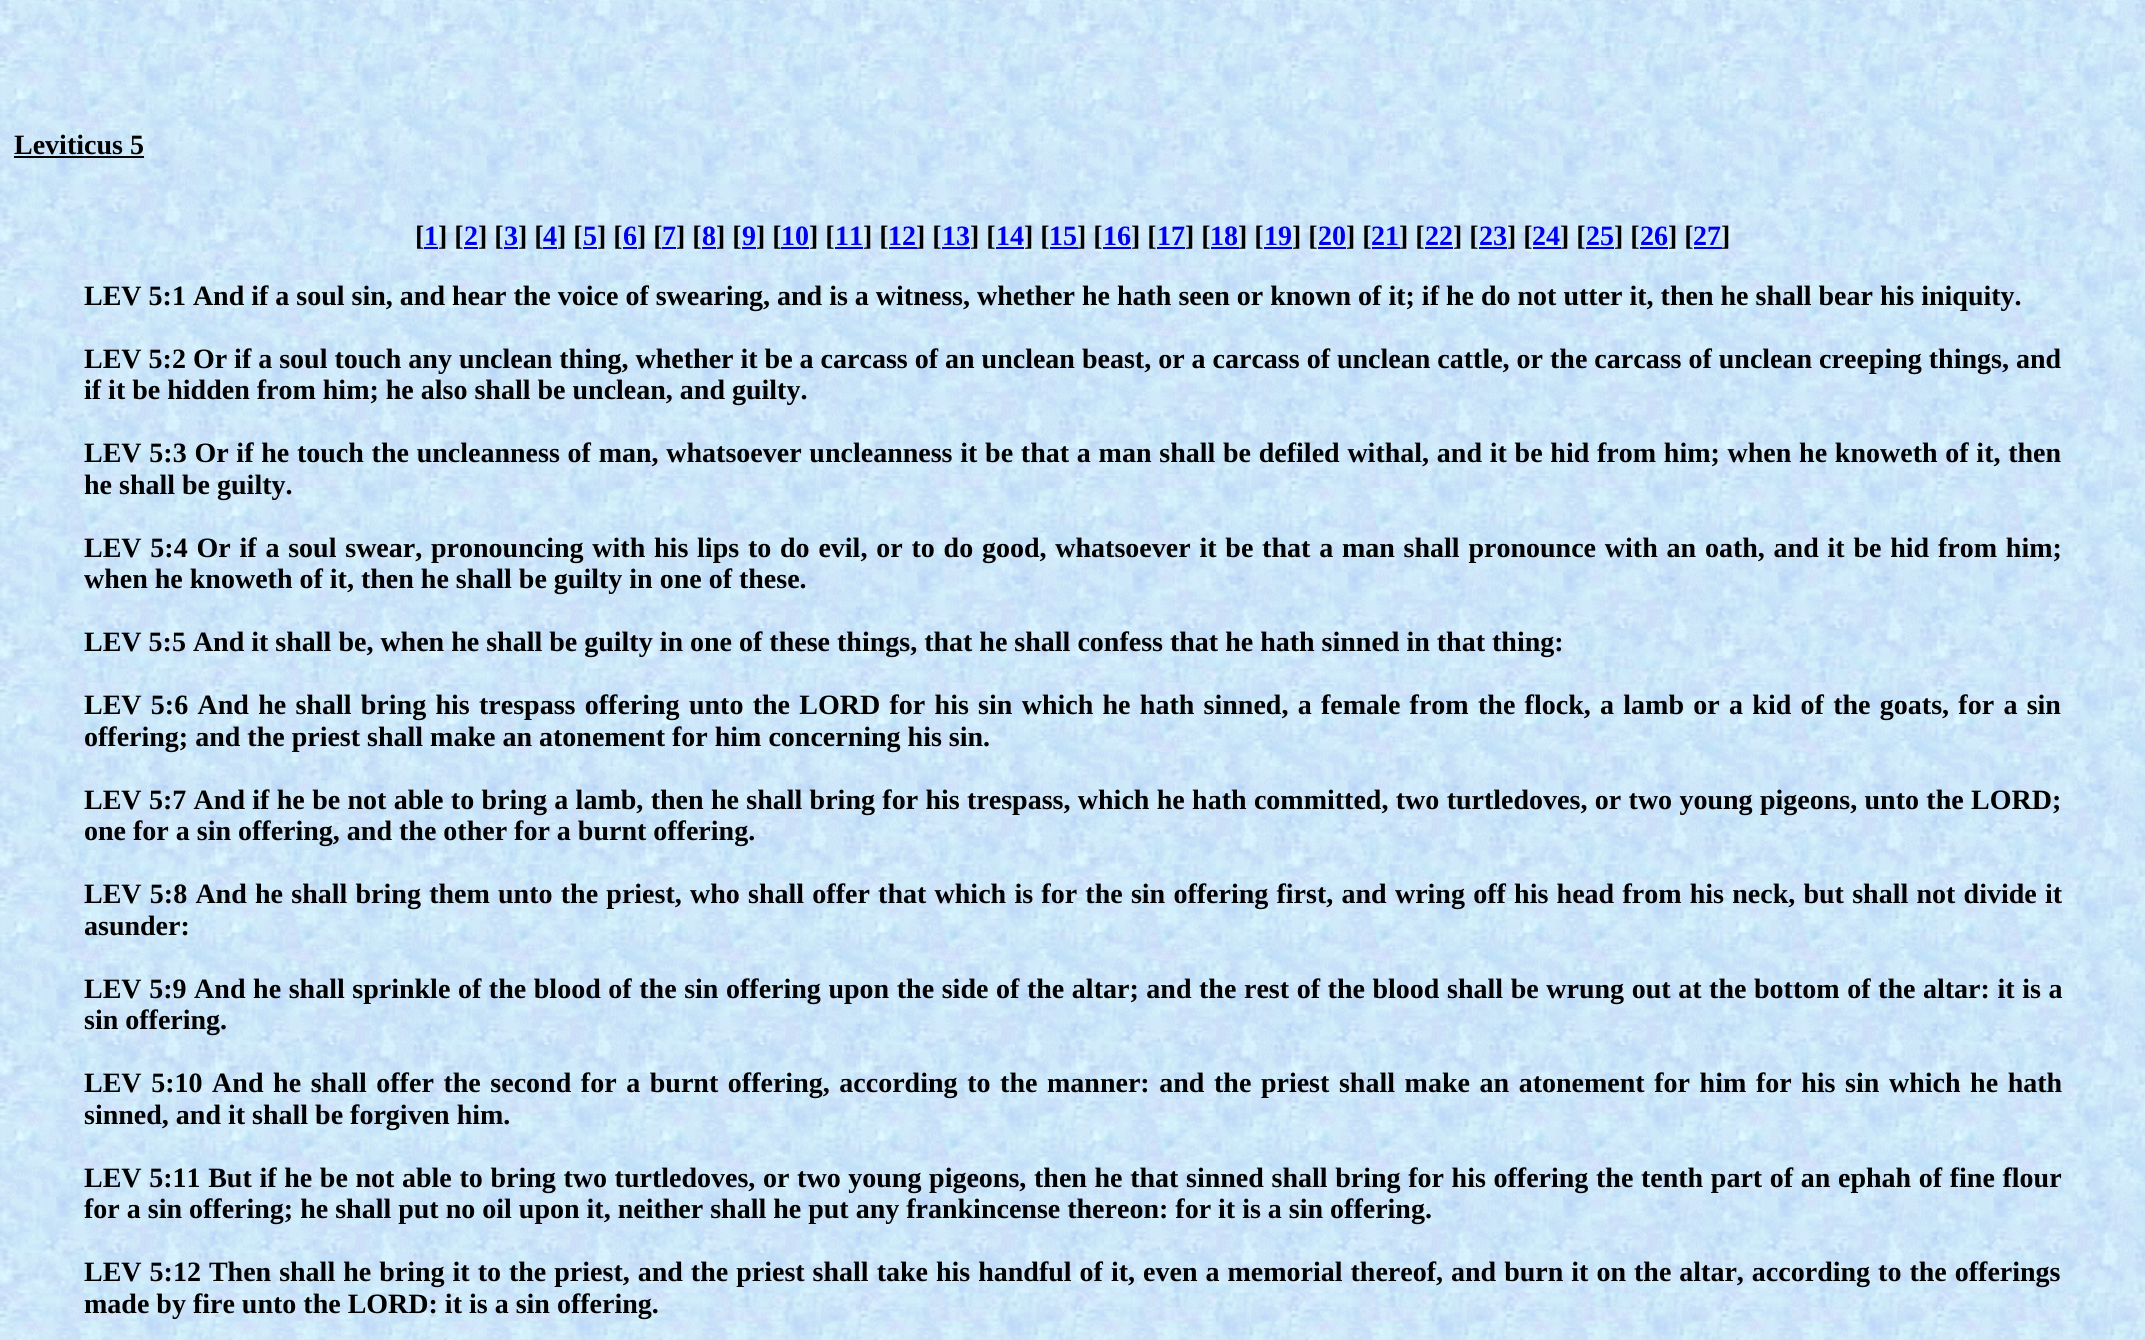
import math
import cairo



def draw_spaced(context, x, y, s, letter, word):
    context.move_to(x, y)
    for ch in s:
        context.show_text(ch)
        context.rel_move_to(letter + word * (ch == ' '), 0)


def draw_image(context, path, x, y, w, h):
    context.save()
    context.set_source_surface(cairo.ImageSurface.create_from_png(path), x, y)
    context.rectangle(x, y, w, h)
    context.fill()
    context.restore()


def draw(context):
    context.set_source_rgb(1, 1, 1)
    context.paint()
    draw_image(context, "images/1.png", 0, 0, 2145, 1340)
    context.set_source_rgb(0, 0, 0)
    context.rectangle(14, 156, 130, 2)
    context.fill()
    context.set_source_rgb(0, 0, 238 / 255)
    context.rectangle(424, 247, 14, 2)
    context.fill()
    context.rectangle(464, 247, 14, 2)
    context.fill()
    context.rectangle(504, 247, 14, 2)
    context.fill()
    context.rectangle(543, 247, 14, 2)
    context.fill()
    context.rectangle(583, 247, 14, 2)
    context.fill()
    context.rectangle(623, 247, 14, 2)
    context.fill()
    context.rectangle(662, 247, 14, 2)
    context.fill()
    context.rectangle(702, 247, 14, 2)
    context.fill()
    context.rectangle(742, 247, 14, 2)
    context.fill()
    context.rectangle(781, 247, 28, 2)
    context.fill()
    context.rectangle(835, 247, 28, 2)
    context.fill()
    context.rectangle(889, 247, 28, 2)
    context.fill()
    context.rectangle(942, 247, 28, 2)
    context.fill()
    context.rectangle(996, 247, 28, 2)
    context.fill()
    context.rectangle(1050, 247, 28, 2)
    context.fill()
    context.rectangle(1103, 247, 28, 2)
    context.fill()
    context.rectangle(1157, 247, 28, 2)
    context.fill()
    context.rectangle(1211, 247, 28, 2)
    context.fill()
    context.rectangle(1264, 247, 28, 2)
    context.fill()
    context.rectangle(1318, 247, 28, 2)
    context.fill()
    context.rectangle(1372, 247, 28, 2)
    context.fill()
    context.rectangle(1425, 247, 28, 2)
    context.fill()
    context.rectangle(1479, 247, 28, 2)
    context.fill()
    context.rectangle(1533, 247, 28, 2)
    context.fill()
    context.rectangle(1586, 247, 28, 2)
    context.fill()
    context.rectangle(1640, 247, 28, 2)
    context.fill()
    context.rectangle(1694, 247, 28, 2)
    context.fill()
    context.select_font_face("Liberation Serif", cairo.FontSlant.NORMAL, cairo.FontWeight.BOLD)
    context.set_font_size(28)
    context.set_source_rgb(0, 0, 0)
    context.move_to(14, 154)
    context.show_text("Leviticus 5")
    context.move_to(415, 245)
    context.show_text("[")
    context.set_source_rgb(0, 0, 238 / 255)
    context.move_to(424, 245)
    context.show_text("1")
    context.set_source_rgb(0, 0, 0)
    context.move_to(438, 245)
    context.show_text("] [")
    context.set_source_rgb(0, 0, 238 / 255)
    context.move_to(464, 245)
    context.show_text("2")
    context.set_source_rgb(0, 0, 0)
    context.move_to(478, 245)
    context.show_text("] [")
    context.set_source_rgb(0, 0, 238 / 255)
    context.move_to(504, 245)
    context.show_text("3")
    context.set_source_rgb(0, 0, 0)
    context.move_to(518, 245)
    context.show_text("] [")
    context.set_source_rgb(0, 0, 238 / 255)
    context.move_to(543, 245)
    context.show_text("4")
    context.set_source_rgb(0, 0, 0)
    context.move_to(557, 245)
    context.show_text("] [")
    context.set_source_rgb(0, 0, 238 / 255)
    context.move_to(583, 245)
    context.show_text("5")
    context.set_source_rgb(0, 0, 0)
    context.move_to(597, 245)
    context.show_text("] [")
    context.set_source_rgb(0, 0, 238 / 255)
    context.move_to(623, 245)
    context.show_text("6")
    context.set_source_rgb(0, 0, 0)
    context.move_to(637, 245)
    context.show_text("] [")
    context.set_source_rgb(0, 0, 238 / 255)
    context.move_to(662, 245)
    context.show_text("7")
    context.set_source_rgb(0, 0, 0)
    context.move_to(676, 245)
    context.show_text("] [")
    context.set_source_rgb(0, 0, 238 / 255)
    context.move_to(702, 245)
    context.show_text("8")
    context.set_source_rgb(0, 0, 0)
    context.move_to(716, 245)
    context.show_text("] [")
    context.set_source_rgb(0, 0, 238 / 255)
    context.move_to(742, 245)
    context.show_text("9")
    context.set_source_rgb(0, 0, 0)
    context.move_to(756, 245)
    context.show_text("] [")
    context.set_source_rgb(0, 0, 238 / 255)
    context.move_to(781, 245)
    context.show_text("10")
    context.set_source_rgb(0, 0, 0)
    context.move_to(809, 245)
    context.show_text("] [")
    context.set_source_rgb(0, 0, 238 / 255)
    context.move_to(835, 245)
    context.show_text("11")
    context.set_source_rgb(0, 0, 0)
    context.move_to(863, 245)
    context.show_text("] [")
    context.set_source_rgb(0, 0, 238 / 255)
    context.move_to(888, 245)
    context.show_text("12")
    context.set_source_rgb(0, 0, 0)
    context.move_to(916, 245)
    context.show_text("] [")
    context.set_source_rgb(0, 0, 238 / 255)
    context.move_to(942, 245)
    context.show_text("13")
    context.set_source_rgb(0, 0, 0)
    context.move_to(970, 245)
    context.show_text("] [")
    context.set_source_rgb(0, 0, 238 / 255)
    context.move_to(996, 245)
    context.show_text("14")
    context.set_source_rgb(0, 0, 0)
    context.move_to(1024, 245)
    context.show_text("] [")
    context.set_source_rgb(0, 0, 238 / 255)
    context.move_to(1049, 245)
    context.show_text("15")
    context.set_source_rgb(0, 0, 0)
    context.move_to(1077, 245)
    context.show_text("] [")
    context.set_source_rgb(0, 0, 238 / 255)
    context.move_to(1103, 245)
    context.show_text("16")
    context.set_source_rgb(0, 0, 0)
    context.move_to(1131, 245)
    context.show_text("] [")
    context.set_source_rgb(0, 0, 238 / 255)
    context.move_to(1157, 245)
    context.show_text("17")
    context.set_source_rgb(0, 0, 0)
    context.move_to(1185, 245)
    context.show_text("] [")
    context.set_source_rgb(0, 0, 238 / 255)
    context.move_to(1210, 245)
    context.show_text("18")
    context.set_source_rgb(0, 0, 0)
    context.move_to(1238, 245)
    context.show_text("] [")
    context.set_source_rgb(0, 0, 238 / 255)
    context.move_to(1264, 245)
    context.show_text("19")
    context.set_source_rgb(0, 0, 0)
    context.move_to(1292, 245)
    context.show_text("] [")
    context.set_source_rgb(0, 0, 238 / 255)
    context.move_to(1318, 245)
    context.show_text("20")
    context.set_source_rgb(0, 0, 0)
    context.move_to(1346, 245)
    context.show_text("] [")
    context.set_source_rgb(0, 0, 238 / 255)
    context.move_to(1371, 245)
    context.show_text("21")
    context.set_source_rgb(0, 0, 0)
    context.move_to(1399, 245)
    context.show_text("] [")
    context.set_source_rgb(0, 0, 238 / 255)
    context.move_to(1425, 245)
    context.show_text("22")
    context.set_source_rgb(0, 0, 0)
    context.move_to(1453, 245)
    context.show_text("] [")
    context.set_source_rgb(0, 0, 238 / 255)
    context.move_to(1479, 245)
    context.show_text("23")
    context.set_source_rgb(0, 0, 0)
    context.move_to(1507, 245)
    context.show_text("] [")
    context.set_source_rgb(0, 0, 238 / 255)
    context.move_to(1532, 245)
    context.show_text("24")
    context.set_source_rgb(0, 0, 0)
    context.move_to(1560, 245)
    context.show_text("] [")
    context.set_source_rgb(0, 0, 238 / 255)
    context.move_to(1586, 245)
    context.show_text("25")
    context.set_source_rgb(0, 0, 0)
    context.move_to(1614, 245)
    context.show_text("] [")
    context.set_source_rgb(0, 0, 238 / 255)
    context.move_to(1640, 245)
    context.show_text("26")
    context.set_source_rgb(0, 0, 0)
    context.move_to(1668, 245)
    context.show_text("] [")
    context.set_source_rgb(0, 0, 238 / 255)
    context.move_to(1693, 245)
    context.show_text("27")
    context.set_source_rgb(0, 0, 0)
    context.move_to(1721, 245)
    context.show_text("]")
    context.move_to(84, 305)
    context.show_text("LEV 5:1 And if a soul sin, and hear the voice of swearing, and is a witness, whether he hath seen or known of it; if he do not utter it, then he shall bear his iniquity.")
    context.move_to(84, 368)
    context.show_text("LEV 5:2 Or if a soul touch any unclean thing, whether it be a carcass of an unclean beast, or a carcass of unclean cattle, or the carcass of unclean creeping things, and")
    context.move_to(84, 399)
    context.show_text("if it be hidden from him; he also shall be unclean, and guilty.")
    draw_spaced(context, 84, 462, "LEV 5:3 Or if he touch the uncleanness of man, whatsoever uncleanness it be that a man shall be defiled withal, and it be hid from him; when he knoweth of it, then", 0, 0.75)
    context.move_to(84, 494)
    context.show_text("he shall be guilty.")
    draw_spaced(context, 84, 557, "LEV 5:4 Or if a soul swear, pronouncing with his lips to do evil, or to do good, whatsoever it be that a man shall pronounce with an oath, and it be hid from him;", 0, 1.8)
    context.move_to(84, 588)
    context.show_text("when he knoweth of it, then he shall be guilty in one of these.")
    context.move_to(84, 651)
    context.show_text("LEV 5:5 And it shall be, when he shall be guilty in one of these things, that he shall confess that he hath sinned in that thing:")
    draw_spaced(context, 84, 714, "LEV 5:6 And he shall bring his trespass offering unto the LORD for his sin which he hath sinned, a female from the flock, a lamb or a kid of the goats, for a sin", 0, 2.3)
    context.move_to(84, 746)
    context.show_text("offering; and the priest shall make an atonement for him concerning his sin.")
    draw_spaced(context, 84, 809, "LEV 5:7 And if he be not able to bring a lamb, then he shall bring for his trespass, which he hath committed, two turtledoves, or two young pigeons, unto the LORD;", 0, 0.35)
    context.move_to(84, 840)
    context.show_text("one for a sin offering, and the other for a burnt offering.")
    draw_spaced(context, 84, 903, "LEV 5:8 And he shall bring them unto the priest, who shall offer that which is for the sin offering first, and wring off his head from his neck, but shall not divide it", 0, 1.25)
    context.move_to(84, 935)
    context.show_text("asunder:")
    draw_spaced(context, 84, 998, "LEV 5:9 And he shall sprinkle of the blood of the sin offering upon the side of the altar; and the rest of the blood shall be wrung out at the bottom of the altar: it is a", 0, 0.6)
    context.move_to(84, 1029)
    context.show_text("sin offering.")
    draw_spaced(context, 84, 1092, "LEV 5:10 And he shall offer the second for a burnt offering, according to the manner: and the priest shall make an atonement for him for his sin which he hath", 0, 2.6)
    context.move_to(84, 1124)
    context.show_text("sinned, and it shall be forgiven him.")
    draw_spaced(context, 84, 1187, "LEV 5:11 But if he be not able to bring two turtledoves, or two young pigeons, then he that sinned shall bring for his offering the tenth part of an ephah of fine flour", 0, 0.65)
    context.move_to(84, 1218)
    context.show_text("for a sin offering; he shall put no oil upon it, neither shall he put any frankincense thereon: for it is a sin offering.")
    draw_spaced(context, 84, 1281, "LEV 5:12 Then shall he bring it to the priest, and the priest shall take his handful of it, even a memorial thereof, and burn it on the altar, according to the offerings", 0, 1)
    context.move_to(84, 1313)
    context.show_text("made by fire unto the LORD: it is a sin offering.")


surface = cairo.ImageSurface(cairo.Format.RGB24, 2145, 1340)
context = cairo.Context(surface)
options = cairo.FontOptions()
options.set_hint_metrics(cairo.HintMetrics.OFF)
options.set_hint_style(cairo.HintStyle.NONE)
context.set_font_options(options)
context.set_miter_limit(4)
draw(context)
surface.write_to_png("out.png")
